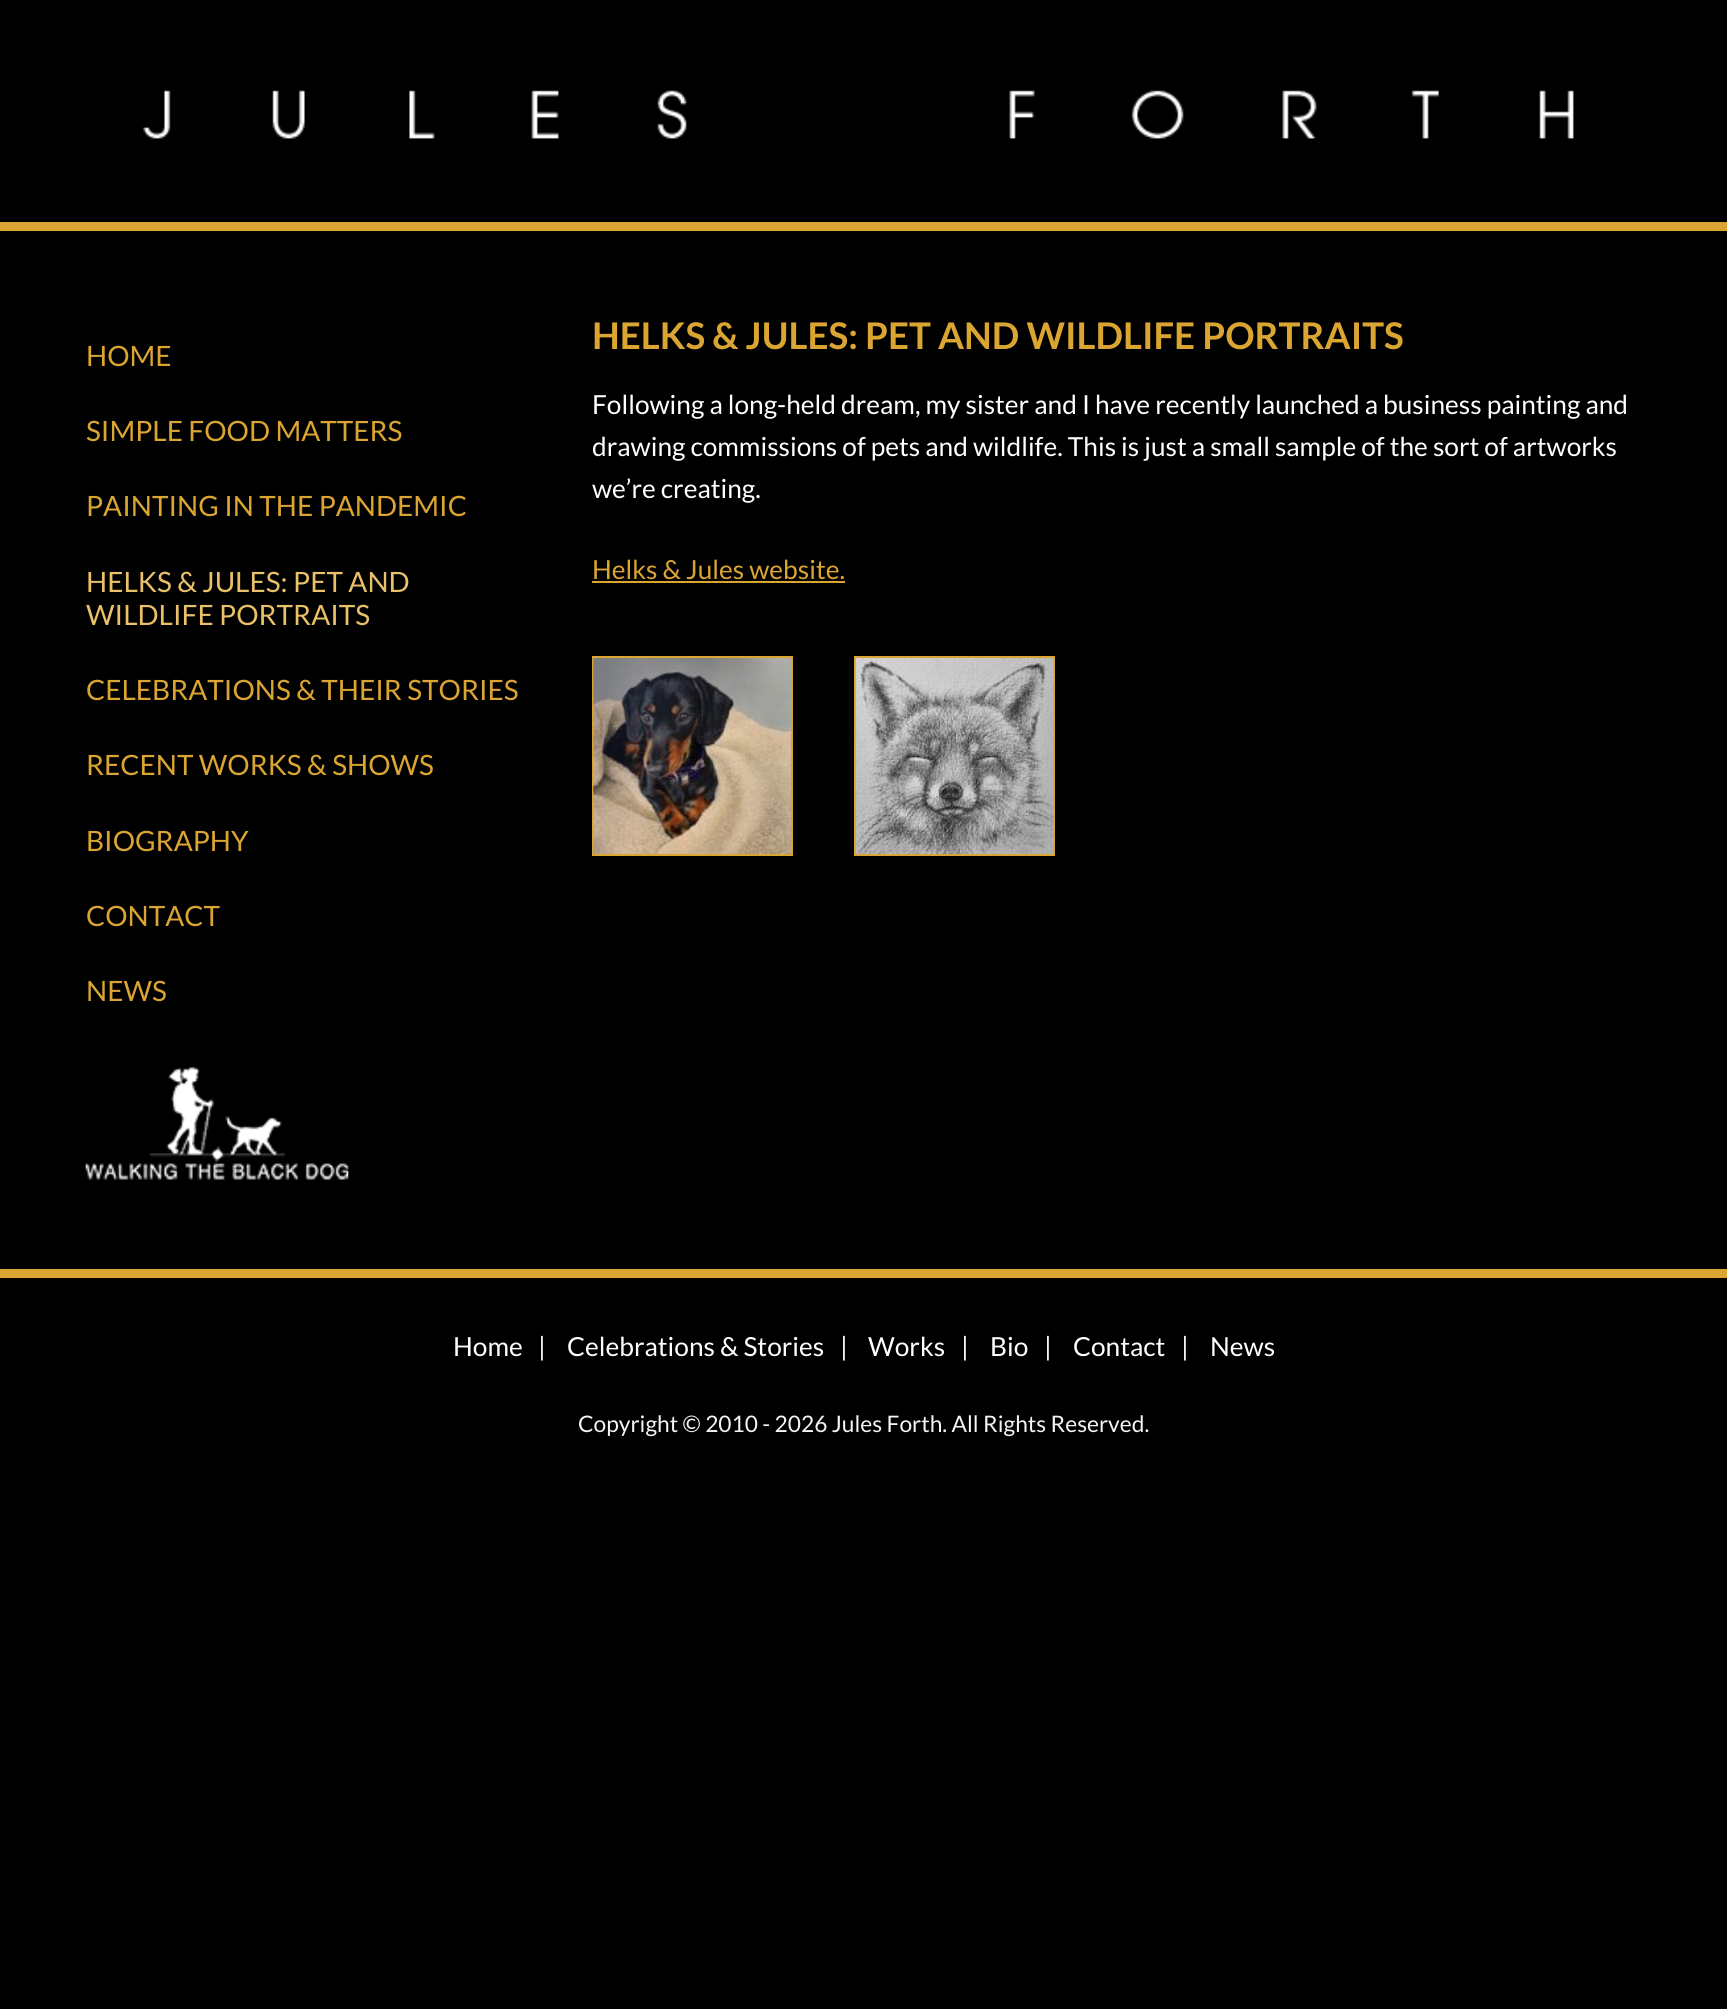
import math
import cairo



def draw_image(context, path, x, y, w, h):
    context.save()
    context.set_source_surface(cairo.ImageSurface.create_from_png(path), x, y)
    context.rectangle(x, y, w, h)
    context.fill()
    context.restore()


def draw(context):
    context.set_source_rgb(0, 0, 0)
    context.paint()
    context.set_source_rgb(219 / 255, 165 / 255, 50 / 255)
    context.rectangle(0, 222, 1727, 9)
    context.fill()
    draw_image(context, "images/1.png", 143, 90, 1431, 49)
    draw_image(context, "images/2.png", 85, 1067, 264, 113)
    context.rectangle(592, 581, 253, 2)
    context.fill()
    context.rectangle(593, 657, 199, 198)
    context.stroke()
    draw_image(context, "images/3.png", 593, 658, 198, 196)
    context.rectangle(855, 657, 199, 198)
    context.stroke()
    draw_image(context, "images/4.png", 855, 658, 199, 196)
    context.rectangle(0, 1269, 1727, 9)
    context.fill()
    context.select_font_face("Lato")
    context.set_font_size(28)
    context.move_to(86, 366)
    context.show_text("HOME")
    context.move_to(86, 441)
    context.show_text("SIMPLE FOOD MATTERS")
    context.move_to(86, 516)
    context.show_text("PAINTING IN THE PANDEMIC")
    context.set_source_rgb(234 / 255, 192 / 255, 104 / 255)
    context.move_to(86, 592)
    context.show_text("HELKS & JULES: PET AND")
    context.move_to(86, 625)
    context.show_text("WILDLIFE PORTRAITS")
    context.set_source_rgb(219 / 255, 165 / 255, 50 / 255)
    context.move_to(86, 700)
    context.show_text("CELEBRATIONS & THEIR STORIES")
    context.move_to(86, 775)
    context.show_text("RECENT WORKS & SHOWS")
    context.move_to(86, 851)
    context.show_text("BIOGRAPHY")
    context.move_to(86, 926)
    context.show_text("CONTACT")
    context.move_to(86, 1001)
    context.show_text("NEWS")
    context.select_font_face("Lato", cairo.FontSlant.NORMAL, cairo.FontWeight.BOLD)
    context.set_font_size(36.75)
    context.move_to(592, 349)
    context.show_text("HELKS & JULES: PET AND WILDLIFE PORTRAITS")
    context.select_font_face("Lato")
    context.set_font_size(26.25)
    context.set_source_rgb(1, 1, 1)
    context.move_to(592, 414)
    context.show_text("Following a long-held dream, my sister and I have recently launched a business painting and")
    context.move_to(592, 456)
    context.show_text("drawing commissions of pets and wildlife. This is just a small sample of the sort of artworks")
    context.move_to(592, 498)
    context.show_text("we’re creating.")
    context.set_source_rgb(219 / 255, 165 / 255, 50 / 255)
    context.move_to(592, 579)
    context.show_text("Helks & Jules website.")
    context.set_source_rgb(1, 1, 1)
    context.move_to(453, 1356)
    context.show_text("Home")
    context.set_source_rgb(245 / 255, 245 / 255, 245 / 255)
    context.move_to(538, 1356)
    context.show_text("|")
    context.set_source_rgb(1, 1, 1)
    context.move_to(567, 1356)
    context.show_text("Celebrations & Stories")
    context.set_source_rgb(245 / 255, 245 / 255, 245 / 255)
    context.move_to(840, 1356)
    context.show_text("|")
    context.set_source_rgb(1, 1, 1)
    context.move_to(868, 1356)
    context.show_text("Works")
    context.set_source_rgb(245 / 255, 245 / 255, 245 / 255)
    context.move_to(961, 1356)
    context.show_text("|")
    context.set_source_rgb(1, 1, 1)
    context.move_to(990, 1356)
    context.show_text("Bio")
    context.set_source_rgb(245 / 255, 245 / 255, 245 / 255)
    context.move_to(1044, 1356)
    context.show_text("|")
    context.set_source_rgb(1, 1, 1)
    context.move_to(1073, 1356)
    context.show_text("Contact")
    context.set_source_rgb(245 / 255, 245 / 255, 245 / 255)
    context.move_to(1181, 1356)
    context.show_text("|")
    context.set_source_rgb(1, 1, 1)
    context.move_to(1210, 1356)
    context.show_text("News")
    context.set_font_size(22.75)
    context.set_source_rgb(245 / 255, 245 / 255, 245 / 255)
    context.move_to(578, 1432)
    context.show_text("Copyright © 2010 - 2026 Jules Forth. All Rights Reserved.")


surface = cairo.ImageSurface(cairo.Format.RGB24, 1727, 2009)
context = cairo.Context(surface)
options = cairo.FontOptions()
options.set_hint_metrics(cairo.HintMetrics.OFF)
options.set_hint_style(cairo.HintStyle.NONE)
context.set_font_options(options)
context.set_miter_limit(4)
draw(context)
surface.write_to_png("out.png")
